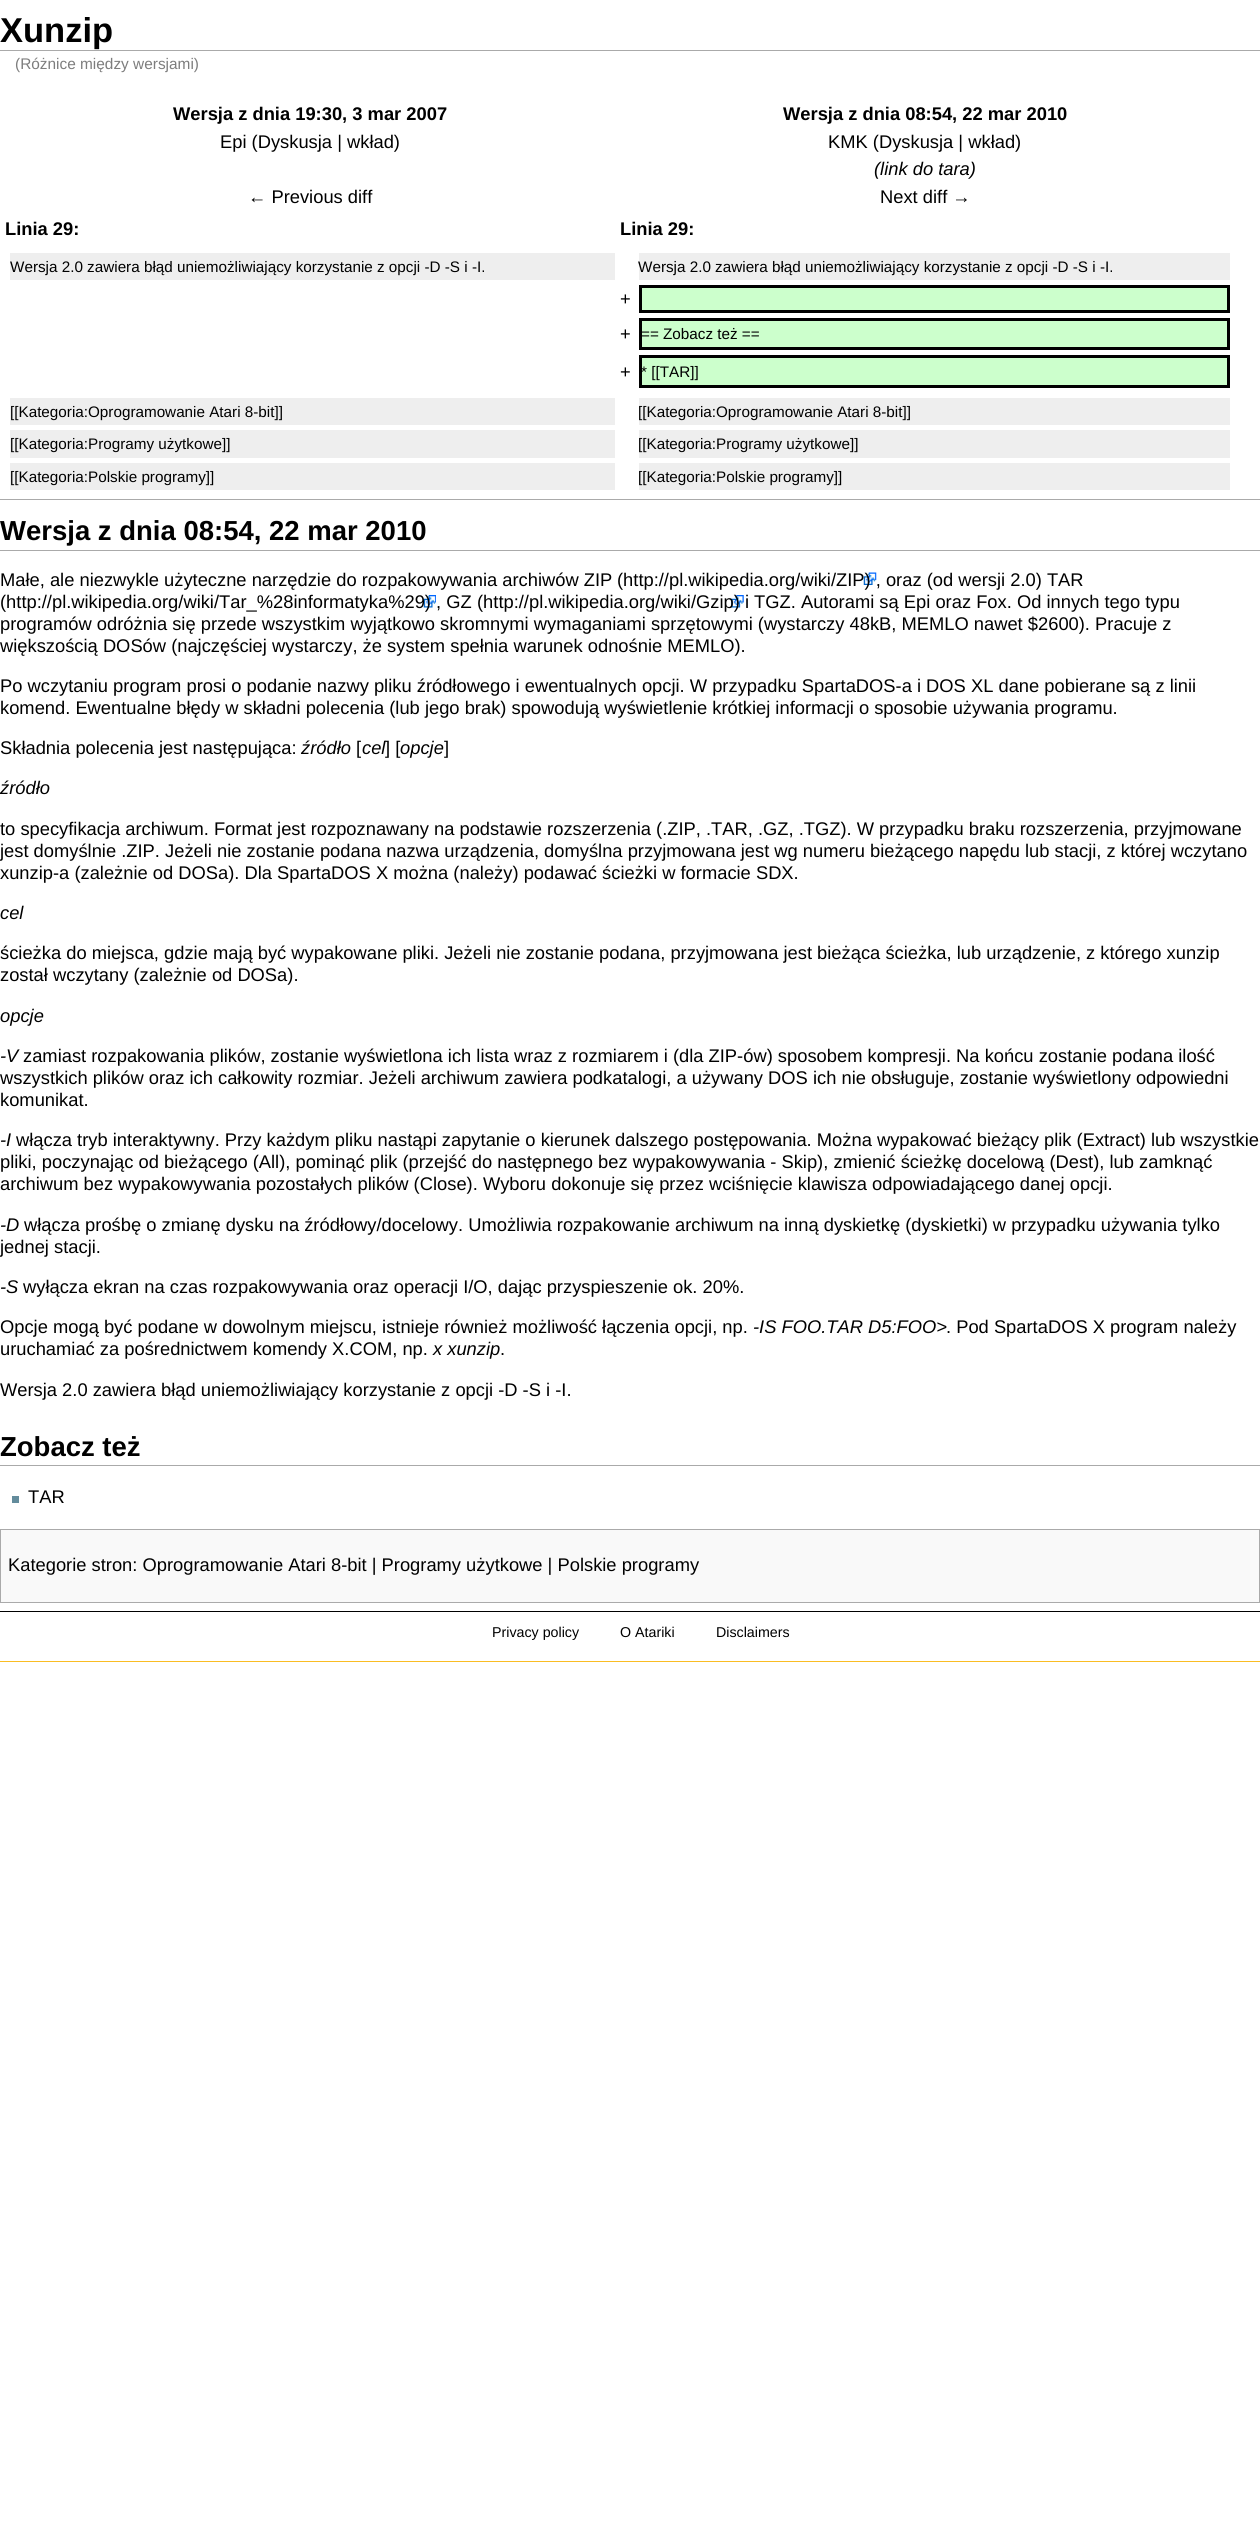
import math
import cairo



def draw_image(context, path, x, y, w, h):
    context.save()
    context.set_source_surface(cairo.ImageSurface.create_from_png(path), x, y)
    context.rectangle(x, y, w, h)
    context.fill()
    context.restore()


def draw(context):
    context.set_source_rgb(1, 1, 1)
    context.paint()
    context.set_source_rgb(170 / 255, 170 / 255, 170 / 255)
    context.rectangle(0, 50, 1260, 1)
    context.fill()
    context.set_source_rgb(238 / 255, 238 / 255, 238 / 255)
    context.rectangle(10, 253, 605, 27)
    context.fill()
    context.rectangle(639, 253, 591, 27)
    context.fill()
    context.set_source_rgb(204 / 255, 1, 204 / 255)
    context.rectangle(640.5, 286.5, 588, 25)
    context.fill_preserve()
    context.set_source_rgb(0, 0, 0)
    context.set_line_width(3)
    context.stroke()
    context.set_source_rgb(204 / 255, 1, 204 / 255)
    context.rectangle(640.5, 319.5, 588, 29)
    context.fill_preserve()
    context.set_source_rgb(0, 0, 0)
    context.stroke()
    context.set_source_rgb(204 / 255, 1, 204 / 255)
    context.rectangle(640.5, 356.5, 588, 30)
    context.fill_preserve()
    context.set_source_rgb(0, 0, 0)
    context.stroke()
    context.set_source_rgb(238 / 255, 238 / 255, 238 / 255)
    context.rectangle(10, 398, 605, 27)
    context.fill()
    context.rectangle(639, 398, 591, 27)
    context.fill()
    context.rectangle(10, 430, 605, 28)
    context.fill()
    context.rectangle(639, 430, 591, 28)
    context.fill()
    context.rectangle(10, 463, 605, 27)
    context.fill()
    context.rectangle(639, 463, 591, 27)
    context.fill()
    context.set_source_rgb(170 / 255, 170 / 255, 170 / 255)
    context.rectangle(0, 499, 1260, 1)
    context.fill()
    context.rectangle(0, 550, 1260, 1)
    context.fill()
    draw_image(context, "images/1.png", 863, 572, 14, 13)
    draw_image(context, "images/2.png", 423, 595, 13, 13)
    draw_image(context, "images/3.png", 731, 595, 13, 13)
    context.rectangle(0, 1465, 1260, 1)
    context.fill()
    context.set_source_rgb(99 / 255, 140 / 255, 156 / 255)
    context.rectangle(12, 1496, 7, 7)
    context.fill()
    context.set_source_rgb(249 / 255, 249 / 255, 249 / 255)
    context.rectangle(0.5, 1529.5, 1259, 73)
    context.fill_preserve()
    context.set_source_rgb(170 / 255, 170 / 255, 170 / 255)
    context.set_line_width(1)
    context.stroke()
    context.set_source_rgb(0, 0, 0)
    context.rectangle(0, 1611, 1260, 1)
    context.fill()
    context.set_source_rgb(250 / 255, 189 / 255, 35 / 255)
    context.rectangle(0, 1661, 1260, 1)
    context.fill()
    context.select_font_face("Liberation Sans", cairo.FontSlant.NORMAL, cairo.FontWeight.BOLD)
    context.set_font_size(34.5)
    context.set_source_rgb(0, 0, 0)
    context.move_to(0, 42)
    context.show_text("Xunzip")
    context.select_font_face("Liberation Sans")
    context.set_font_size(15.4)
    context.set_source_rgb(125 / 255, 125 / 255, 125 / 255)
    context.move_to(15, 69)
    context.show_text("(Różnice między wersjami)")
    context.select_font_face("Liberation Sans", cairo.FontSlant.NORMAL, cairo.FontWeight.BOLD)
    context.set_font_size(18.33)
    context.set_source_rgb(0, 0, 0)
    context.move_to(173, 120)
    context.show_text("Wersja z dnia 19:30, 3 mar 2007")
    context.select_font_face("Liberation Sans")
    context.move_to(220, 148)
    context.show_text("Epi (Dyskusja | wkład)")
    context.move_to(248, 203)
    context.show_text("← Previous diff")
    context.select_font_face("Liberation Sans", cairo.FontSlant.NORMAL, cairo.FontWeight.BOLD)
    context.move_to(783, 120)
    context.show_text("Wersja z dnia 08:54, 22 mar 2010")
    context.select_font_face("Liberation Sans")
    context.move_to(828, 148)
    context.show_text("KMK (Dyskusja | wkład)")
    context.select_font_face("Liberation Sans", cairo.FontSlant.ITALIC)
    context.move_to(874, 175)
    context.show_text("(link do tara)")
    context.select_font_face("Liberation Sans")
    context.move_to(880, 203)
    context.show_text("Next diff →")
    context.select_font_face("Liberation Sans", cairo.FontSlant.NORMAL, cairo.FontWeight.BOLD)
    context.move_to(5, 235)
    context.show_text("Linia 29:")
    context.move_to(620, 235)
    context.show_text("Linia 29:")
    context.select_font_face("Liberation Sans")
    context.set_font_size(15.25)
    context.move_to(10, 272)
    context.show_text("Wersja 2.0 zawiera błąd uniemożliwiający korzystanie z opcji -D -S i -I.")
    context.move_to(638, 272)
    context.show_text("Wersja 2.0 zawiera błąd uniemożliwiający korzystanie z opcji -D -S i -I.")
    context.set_font_size(18.33)
    context.move_to(620, 305)
    context.show_text("+")
    context.move_to(620, 340)
    context.show_text("+")
    context.set_font_size(15.25)
    context.move_to(641, 339)
    context.show_text("== Zobacz też ==")
    context.set_font_size(18.33)
    context.move_to(620, 378)
    context.show_text("+")
    context.set_font_size(15.25)
    context.move_to(641, 377)
    context.show_text("* [[TAR]]")
    context.move_to(10, 417)
    context.show_text("[[Kategoria:Oprogramowanie Atari 8-bit]]")
    context.move_to(638, 417)
    context.show_text("[[Kategoria:Oprogramowanie Atari 8-bit]]")
    context.move_to(10, 449)
    context.show_text("[[Kategoria:Programy użytkowe]]")
    context.move_to(638, 449)
    context.show_text("[[Kategoria:Programy użytkowe]]")
    context.move_to(10, 482)
    context.show_text("[[Kategoria:Polskie programy]]")
    context.move_to(638, 482)
    context.show_text("[[Kategoria:Polskie programy]]")
    context.select_font_face("Liberation Sans", cairo.FontSlant.NORMAL, cairo.FontWeight.BOLD)
    context.set_font_size(27.5)
    context.move_to(0, 540)
    context.show_text("Wersja z dnia 08:54, 22 mar 2010")
    context.select_font_face("Liberation Sans")
    context.set_font_size(18.33)
    context.move_to(0, 586)
    context.show_text("Małe, ale niezwykle użyteczne narzędzie do rozpakowywania archiwów ZIP")
    context.move_to(617, 586)
    context.show_text("(http://pl.wikipedia.org/wiki/ZIP) , oraz (od wersji 2.0) TAR")
    context.move_to(0, 608)
    context.show_text("(http://pl.wikipedia.org/wiki/Tar_%28informatyka%29)")
    context.move_to(477, 608)
    context.show_text("(http://pl.wikipedia.org/wiki/Gzip) i TGZ. Autorami są Epi oraz Fox. Od innych tego typu")
    context.move_to(436, 608)
    context.show_text(", GZ")
    context.move_to(0, 630)
    context.show_text("programów odróżnia się przede wszystkim wyjątkowo skromnymi wymaganiami sprzętowymi (wystarczy 48kB, MEMLO nawet $2600). Pracuje z")
    context.move_to(0, 652)
    context.show_text("większością DOSów (najczęściej wystarczy, że system spełnia warunek odnośnie MEMLO).")
    context.move_to(0, 692)
    context.show_text("Po wczytaniu program prosi o podanie nazwy pliku źródłowego i ewentualnych opcji. W przypadku SpartaDOS-a i DOS XL dane pobierane są z linii")
    context.move_to(0, 714)
    context.show_text("komend. Ewentualne błędy w składni polecenia (lub jego brak) spowodują wyświetlenie krótkiej informacji o sposobie używania programu.")
    context.move_to(0, 754)
    context.show_text("Składnia polecenia jest następująca:")
    context.select_font_face("Liberation Sans", cairo.FontSlant.ITALIC)
    context.move_to(301, 754)
    context.show_text("źródło")
    context.select_font_face("Liberation Sans")
    context.move_to(356, 754)
    context.show_text("[")
    context.select_font_face("Liberation Sans", cairo.FontSlant.ITALIC)
    context.move_to(362, 754)
    context.show_text("cel")
    context.select_font_face("Liberation Sans")
    context.move_to(385, 754)
    context.show_text("] [")
    context.select_font_face("Liberation Sans", cairo.FontSlant.ITALIC)
    context.move_to(400, 754)
    context.show_text("opcje")
    context.select_font_face("Liberation Sans")
    context.move_to(444, 754)
    context.show_text("]")
    context.select_font_face("Liberation Sans", cairo.FontSlant.ITALIC)
    context.move_to(0, 794)
    context.show_text("źródło")
    context.select_font_face("Liberation Sans")
    context.move_to(0, 835)
    context.show_text("to specyfikacja archiwum. Format jest rozpoznawany na podstawie rozszerzenia (.ZIP, .TAR, .GZ, .TGZ). W przypadku braku rozszerzenia, przyjmowane")
    context.move_to(0, 857)
    context.show_text("jest domyślnie .ZIP. Jeżeli nie zostanie podana nazwa urządzenia, domyślna przyjmowana jest wg numeru bieżącego napędu lub stacji, z której wczytano")
    context.move_to(0, 879)
    context.show_text("xunzip-a (zależnie od DOSa). Dla SpartaDOS X można (należy) podawać ścieżki w formacie SDX.")
    context.select_font_face("Liberation Sans", cairo.FontSlant.ITALIC)
    context.move_to(0, 919)
    context.show_text("cel")
    context.select_font_face("Liberation Sans")
    context.move_to(0, 959)
    context.show_text("ścieżka do miejsca, gdzie mają być wypakowane pliki. Jeżeli nie zostanie podana, przyjmowana jest bieżąca ścieżka, lub urządzenie, z którego xunzip")
    context.move_to(0, 981)
    context.show_text("został wczytany (zależnie od DOSa).")
    context.select_font_face("Liberation Sans", cairo.FontSlant.ITALIC)
    context.move_to(0, 1022)
    context.show_text("opcje")
    context.move_to(0, 1062)
    context.show_text("-V")
    context.select_font_face("Liberation Sans")
    context.move_to(23, 1062)
    context.show_text("zamiast rozpakowania plików, zostanie wyświetlona ich lista wraz z rozmiarem i (dla ZIP-ów) sposobem kompresji. Na końcu zostanie podana ilość")
    context.move_to(0, 1084)
    context.show_text("wszystkich plików oraz ich całkowity rozmiar. Jeżeli archiwum zawiera podkatalogi, a używany DOS ich nie obsługuje, zostanie wyświetlony odpowiedni")
    context.move_to(0, 1106)
    context.show_text("komunikat.")
    context.select_font_face("Liberation Sans", cairo.FontSlant.ITALIC)
    context.move_to(0, 1146)
    context.show_text("-I")
    context.select_font_face("Liberation Sans")
    context.move_to(16, 1146)
    context.show_text("włącza tryb interaktywny. Przy każdym pliku nastąpi zapytanie o kierunek dalszego postępowania. Można wypakować bieżący plik (Extract) lub wszystkie")
    context.move_to(0, 1168)
    context.show_text("pliki, poczynając od bieżącego (All), pominąć plik (przejść do następnego bez wypakowywania - Skip), zmienić ścieżkę docelową (Dest), lub zamknąć")
    context.move_to(0, 1190)
    context.show_text("archiwum bez wypakowywania pozostałych plików (Close). Wyboru dokonuje się przez wciśnięcie klawisza odpowiadającego danej opcji.")
    context.select_font_face("Liberation Sans", cairo.FontSlant.ITALIC)
    context.move_to(0, 1231)
    context.show_text("-D")
    context.select_font_face("Liberation Sans")
    context.move_to(24, 1231)
    context.show_text("włącza prośbę o zmianę dysku na źródłowy/docelowy. Umożliwia rozpakowanie archiwum na inną dyskietkę (dyskietki) w przypadku używania tylko")
    context.move_to(0, 1253)
    context.show_text("jednej stacji.")
    context.select_font_face("Liberation Sans", cairo.FontSlant.ITALIC)
    context.move_to(0, 1293)
    context.show_text("-S")
    context.select_font_face("Liberation Sans")
    context.move_to(23, 1293)
    context.show_text("wyłącza ekran na czas rozpakowywania oraz operacji I/O, dając przyspieszenie ok. 20%.")
    context.move_to(0, 1333)
    context.show_text("Opcje mogą być podane w dowolnym miejscu, istnieje również możliwość łączenia opcji, np.")
    context.select_font_face("Liberation Sans", cairo.FontSlant.ITALIC)
    context.move_to(753, 1333)
    context.show_text("-IS FOO.TAR D5:FOO>")
    context.select_font_face("Liberation Sans")
    context.move_to(946, 1333)
    context.show_text(". Pod SpartaDOS X program należy")
    context.move_to(0, 1355)
    context.show_text("uruchamiać za pośrednictwem komendy X.COM, np.")
    context.select_font_face("Liberation Sans", cairo.FontSlant.ITALIC)
    context.move_to(433, 1355)
    context.show_text("x xunzip")
    context.select_font_face("Liberation Sans")
    context.move_to(500, 1355)
    context.show_text(".")
    context.move_to(0, 1396)
    context.show_text("Wersja 2.0 zawiera błąd uniemożliwiający korzystanie z opcji -D -S i -I.")
    context.select_font_face("Liberation Sans", cairo.FontSlant.NORMAL, cairo.FontWeight.BOLD)
    context.set_font_size(27.5)
    context.move_to(0, 1456)
    context.show_text("Zobacz też")
    context.select_font_face("Liberation Sans")
    context.set_font_size(18.33)
    context.move_to(28, 1503)
    context.show_text("TAR")
    context.move_to(8, 1571)
    context.show_text("Kategorie stron: Oprogramowanie Atari 8-bit | Programy użytkowe | Polskie programy")
    context.set_font_size(14.25)
    context.move_to(492, 1637)
    context.show_text("Privacy policy")
    context.move_to(620, 1637)
    context.show_text("O Atariki")
    context.move_to(716, 1637)
    context.show_text("Disclaimers")


surface = cairo.ImageSurface(cairo.Format.RGB24, 1260, 2532)
context = cairo.Context(surface)
options = cairo.FontOptions()
options.set_hint_metrics(cairo.HintMetrics.OFF)
options.set_hint_style(cairo.HintStyle.NONE)
context.set_font_options(options)
context.set_miter_limit(4)
draw(context)
surface.write_to_png("out.png")
